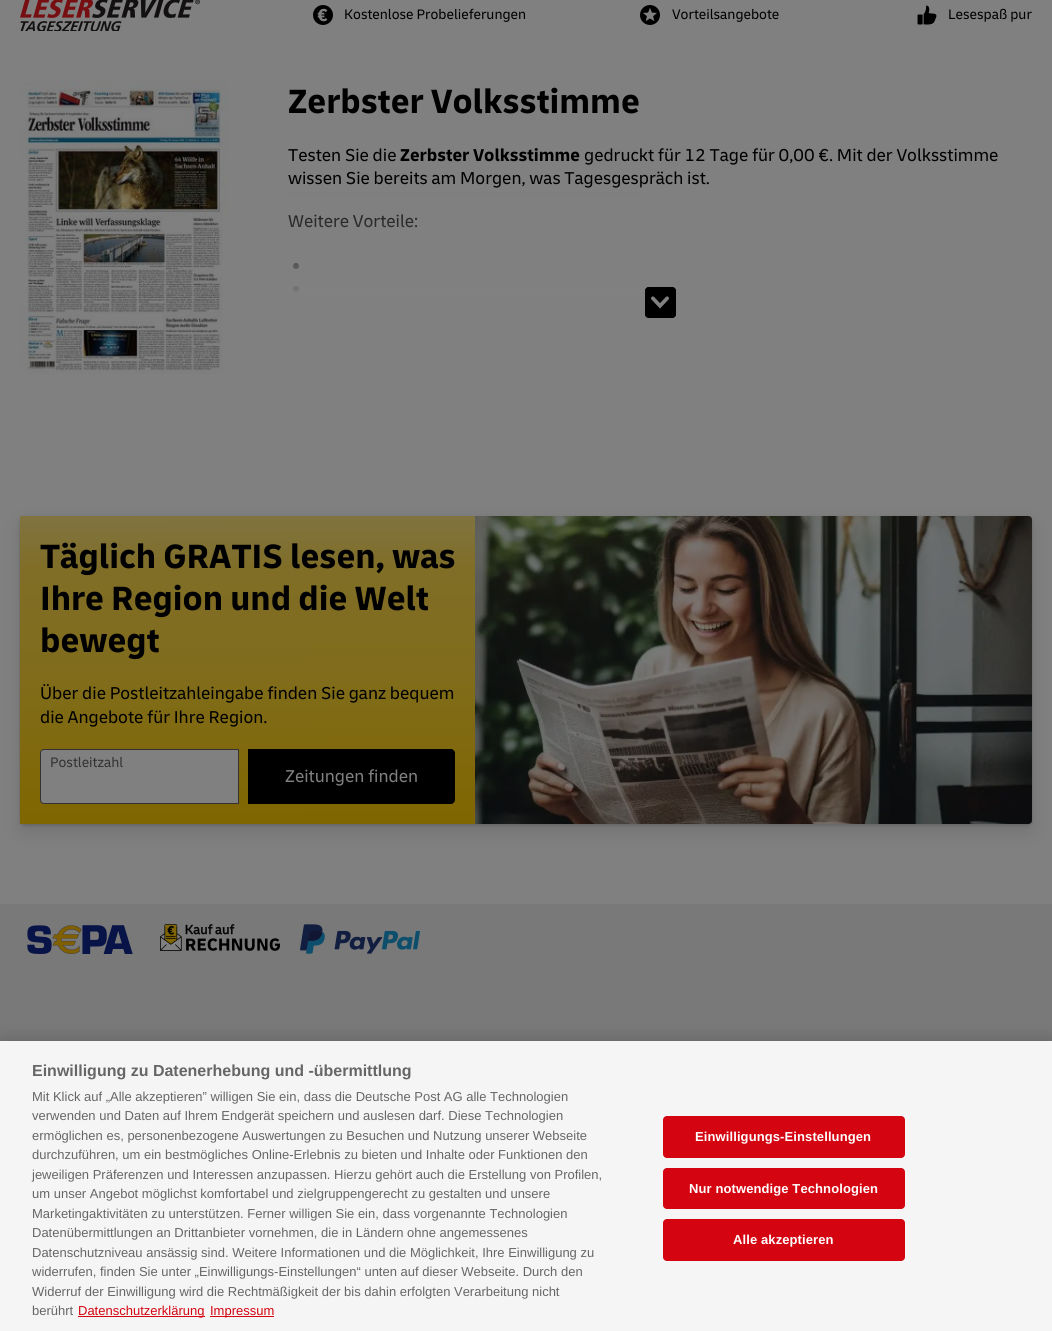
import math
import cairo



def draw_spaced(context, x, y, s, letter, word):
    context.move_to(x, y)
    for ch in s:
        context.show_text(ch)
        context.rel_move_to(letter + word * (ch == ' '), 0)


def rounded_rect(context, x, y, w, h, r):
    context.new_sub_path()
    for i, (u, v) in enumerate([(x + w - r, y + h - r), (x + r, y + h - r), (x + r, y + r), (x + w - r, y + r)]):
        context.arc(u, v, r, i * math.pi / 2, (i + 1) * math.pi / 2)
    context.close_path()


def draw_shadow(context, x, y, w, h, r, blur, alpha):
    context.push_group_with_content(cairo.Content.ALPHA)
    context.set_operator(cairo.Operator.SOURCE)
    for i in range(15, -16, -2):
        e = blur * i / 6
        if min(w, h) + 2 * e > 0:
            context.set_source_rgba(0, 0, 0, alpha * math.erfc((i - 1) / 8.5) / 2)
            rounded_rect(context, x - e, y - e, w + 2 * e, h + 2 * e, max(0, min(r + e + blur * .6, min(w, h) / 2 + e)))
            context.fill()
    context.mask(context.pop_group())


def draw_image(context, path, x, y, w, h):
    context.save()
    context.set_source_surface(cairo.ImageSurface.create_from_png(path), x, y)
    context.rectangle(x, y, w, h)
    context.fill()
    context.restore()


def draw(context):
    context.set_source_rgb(128 / 255, 128 / 255, 128 / 255)
    context.paint()
    draw_image(context, "images/1.png", 20, 0, 180, 31)
    draw_image(context, "images/2.png", 313, 5, 20, 20)
    draw_image(context, "images/3.png", 640, 5, 20, 20)
    draw_image(context, "images/4.png", 917, 5, 20, 20)
    draw_image(context, "images/5.png", 20, 81, 208, 293)
    context.set_source_rgb(0, 0, 0)
    context.arc(296, 266, 3, 0, 2 * math.pi)
    context.fill()
    context.arc(296, 289, 3, 0, 2 * math.pi)
    context.fill()
    rounded_rect(context, 645, 287, 31, 31, 4)
    context.fill()
    draw_image(context, "images/6.png", 651, 296, 18, 13)
    rounded_rect(context, 646, 288, 29, 29, 3)
    context.stroke()
    context.set_source_rgb(0, 0, 0)
    draw_shadow(context, 20, 517, 1012, 308, 4, 1, 0.1)
    draw_shadow(context, 20, 524, 1012, 308, 4, 9, 0.1)
    draw_shadow(context, 21, 519, 1010, 306, 3, 3, 0.1)
    draw_image(context, "images/7.png", 475, 516, 557, 308)
    gradient = cairo.LinearGradient(247, 516, 248, 824)
    gradient.add_color_stop_rgba(0, 128 / 255, 115 / 255, 64 / 255, 1)
    gradient.add_color_stop_rgba(0.17, 128 / 255, 110 / 255, 39 / 255, 1)
    gradient.add_color_stop_rgba(0.52, 128 / 255, 108 / 255, 27 / 255, 1)
    gradient.add_color_stop_rgba(1, 128 / 255, 102 / 255, 0, 1)
    context.set_source(gradient)
    context.rectangle(20, 516, 455, 308)
    context.fill()
    context.set_source_rgb(128 / 255, 128 / 255, 128 / 255)
    context.new_path()
    context.move_to(44, 749.5)
    context.line_to(238.5, 749.5)
    context.line_to(238.5, 803.5)
    context.line_to(44, 803.5)
    context.curve_to(42, 803.5, 40.5, 802, 40.5, 800)
    context.line_to(40.5, 753)
    context.curve_to(40.5, 751, 42, 749.5, 44, 749.5)
    context.close_path()
    context.fill_preserve()
    context.set_source_rgb(51 / 255, 51 / 255, 51 / 255)
    context.set_line_width(1)
    context.stroke()
    context.set_source_rgb(0, 0, 0)
    context.new_path()
    context.move_to(248, 749)
    context.line_to(451, 749)
    context.curve_to(453, 749, 455, 751, 455, 753)
    context.line_to(455, 800)
    context.curve_to(455, 802, 453, 804, 451, 804)
    context.line_to(248, 804)
    context.close_path()
    context.fill()
    context.set_source_rgb(121 / 255, 121 / 255, 121 / 255)
    context.rectangle(0, 904, 1052, 137)
    context.fill()
    draw_image(context, "images/8.png", 27, 925, 106, 29)
    draw_image(context, "images/9.png", 160, 924, 120, 27)
    draw_image(context, "images/10.png", 300, 924, 120, 30)
    context.set_source_rgb(0, 0, 0)
    draw_shadow(context, 0, 1041, 1052, 290, 0, 9, 0.2)
    context.set_source_rgb(245 / 255, 245 / 255, 245 / 255)
    context.rectangle(0, 1041, 1052, 290)
    context.fill()
    context.set_source_rgb(212 / 255, 5 / 255, 17 / 255)
    context.rectangle(78, 1316, 127, 1)
    context.fill()
    context.rectangle(210, 1316, 64, 1)
    context.fill()
    rounded_rect(context, 663.5, 1116.5, 241, 41, 3.5)
    context.fill_preserve()
    context.stroke()
    rounded_rect(context, 663.5, 1168.5, 241, 40, 3.5)
    context.fill_preserve()
    context.stroke()
    rounded_rect(context, 663.5, 1219.5, 241, 41, 3.5)
    context.fill_preserve()
    context.stroke()
    context.select_font_face("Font")
    context.set_font_size(14.4)
    context.set_source_rgb(0, 0, 0)
    context.move_to(344, 19)
    context.show_text("Kostenlose Probelieferungen")
    context.move_to(672, 19)
    context.show_text("Vorteilsangebote")
    context.move_to(948, 19)
    context.show_text("Lesespaß pur")
    context.select_font_face("Font", cairo.FontSlant.NORMAL, cairo.FontWeight.BOLD)
    context.set_font_size(35.2)
    context.move_to(288, 113)
    context.show_text("Zerbster Volksstimme")
    context.select_font_face("Font")
    context.set_font_size(18)
    context.move_to(288, 161)
    context.show_text("Testen Sie die")
    context.select_font_face("Font", cairo.FontSlant.NORMAL, cairo.FontWeight.BOLD)
    context.move_to(400, 161)
    context.show_text("Zerbster Volksstimme")
    context.select_font_face("Font")
    context.move_to(584, 161)
    context.show_text("gedruckt für 12 Tage für 0,00 €. Mit der Volksstimme")
    context.move_to(288, 184)
    context.show_text("wissen Sie bereits am Morgen, was Tagesgespräch ist.")
    context.move_to(288, 227)
    context.show_text("Weitere Vorteile:")
    gradient = cairo.LinearGradient(660, 183, 660, 301)
    gradient.add_color_stop_rgba(0, 128 / 255, 128 / 255, 128 / 255, 0)
    gradient.add_color_stop_rgba(1, 128 / 255, 128 / 255, 128 / 255, 1)
    context.set_source(gradient)
    context.rectangle(288, 186, 354, 106)
    context.fill()
    context.select_font_face("Font", cairo.FontSlant.NORMAL, cairo.FontWeight.BOLD)
    context.set_font_size(35.2)
    context.set_source_rgb(0, 0, 0)
    context.move_to(40, 568)
    context.show_text("Täglich GRATIS lesen, was")
    context.move_to(40, 610)
    context.show_text("Ihre Region und die Welt")
    context.move_to(40, 652)
    context.show_text("bewegt")
    context.select_font_face("Font")
    context.set_font_size(18)
    context.move_to(40, 699)
    context.show_text("Über die Postleitzahleingabe finden Sie ganz bequem")
    context.move_to(40, 723)
    context.show_text("die Angebote für Ihre Region.")
    context.set_font_size(14.4)
    context.set_source_rgb(51 / 255, 51 / 255, 51 / 255)
    context.move_to(50, 767)
    context.show_text("Postleitzahl")
    context.set_font_size(18)
    context.set_source_rgb(128 / 255, 128 / 255, 128 / 255)
    context.move_to(285, 782)
    context.show_text("Zeitungen finden")
    context.select_font_face("Liberation Sans", cairo.FontSlant.NORMAL, cairo.FontWeight.BOLD)
    context.set_font_size(16)
    context.set_source_rgb(102 / 255, 102 / 255, 102 / 255)
    context.move_to(32, 1076)
    context.show_text("Einwilligung zu Datenerhebung und -übermittlung")
    context.select_font_face("Liberation Sans")
    context.set_font_size(13)
    context.move_to(32, 1101)
    context.show_text("Mit Klick auf „Alle akzeptieren” willigen Sie ein, dass die Deutsche Post AG alle Technologien")
    context.move_to(32, 1120)
    context.show_text("verwenden und Daten auf Ihrem Endgerät speichern und auslesen darf. Diese Technologien")
    context.move_to(32, 1140)
    context.show_text("ermöglichen es, personenbezogene Auswertungen zu Besuchen und Nutzung unserer Webseite")
    context.move_to(32, 1159)
    context.show_text("durchzuführen, um ein bestmögliches Online-Erlebnis zu bieten und Inhalte oder Funktionen den")
    context.move_to(32, 1179)
    context.show_text("jeweiligen Präferenzen und Interessen anzupassen. Hierzu gehört auch die Erstellung von Profilen,")
    context.move_to(32, 1198)
    context.show_text("um unser Angebot möglichst komfortabel und zielgruppengerecht zu gestalten und unsere")
    context.move_to(32, 1218)
    context.show_text("Marketingaktivitäten zu unterstützen. Ferner willigen Sie ein, dass vorgenannte Technologien")
    context.move_to(32, 1237)
    context.show_text("Datenübermittlungen an Drittanbieter vornehmen, die in Ländern ohne angemessenes")
    context.move_to(32, 1257)
    context.show_text("Datenschutzniveau ansässig sind. Weitere Informationen und die Möglichkeit, Ihre Einwilligung zu")
    context.move_to(32, 1276)
    context.show_text("widerrufen, finden Sie unter „Einwilligungs-Einstellungen“ unten auf dieser Webseite. Durch den")
    context.move_to(32, 1296)
    context.show_text("Widerruf der Einwilligung wird die Rechtmäßigkeit der bis dahin erfolgten Verarbeitung nicht")
    context.move_to(32, 1315)
    context.show_text("berührt")
    context.set_source_rgb(212 / 255, 5 / 255, 17 / 255)
    context.move_to(78, 1315)
    context.show_text("Datenschutzerklärung")
    context.move_to(210, 1315)
    context.show_text("Impressum")
    context.select_font_face("Liberation Sans", cairo.FontSlant.NORMAL, cairo.FontWeight.BOLD)
    context.set_source_rgb(1, 1, 1)
    draw_spaced(context, 695, 1141, "Einwilligungs-Einstellungen", 0.1, 0)
    draw_spaced(context, 689, 1193, "Nur notwendige Technologien", 0.1, 0)
    draw_spaced(context, 733, 1244, "Alle akzeptieren", 0.1, 0)


surface = cairo.ImageSurface(cairo.Format.RGB24, 1052, 1331)
context = cairo.Context(surface)
options = cairo.FontOptions()
options.set_hint_metrics(cairo.HintMetrics.OFF)
options.set_hint_style(cairo.HintStyle.NONE)
context.set_font_options(options)
context.set_miter_limit(4)
draw(context)
surface.write_to_png("out.png")
